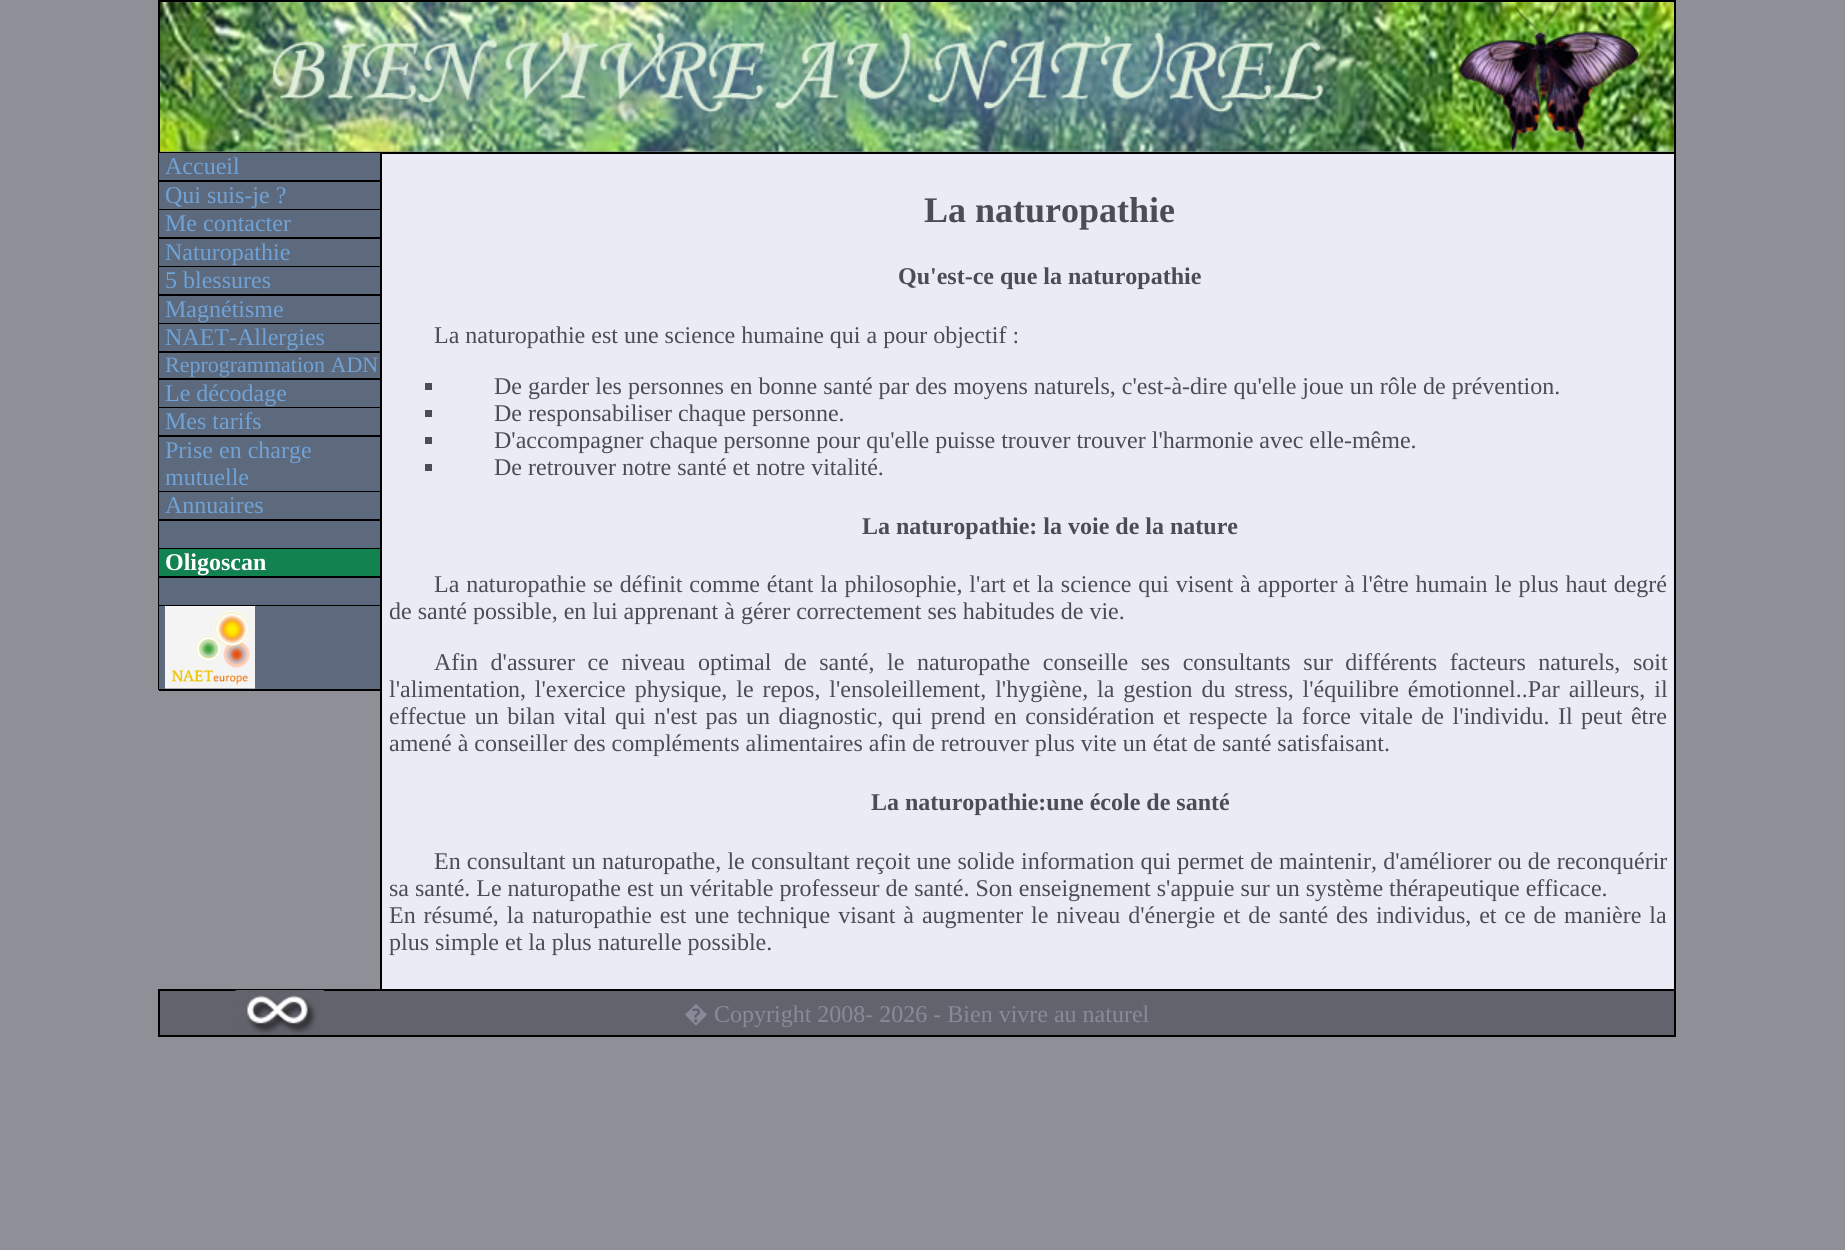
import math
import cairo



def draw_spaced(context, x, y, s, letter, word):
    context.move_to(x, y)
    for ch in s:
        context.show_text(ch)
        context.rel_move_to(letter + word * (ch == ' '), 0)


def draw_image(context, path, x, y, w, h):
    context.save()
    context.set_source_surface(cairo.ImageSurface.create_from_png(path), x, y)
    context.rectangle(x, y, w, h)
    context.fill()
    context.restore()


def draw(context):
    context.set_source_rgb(143 / 255, 144 / 255, 151 / 255)
    context.paint()
    draw_image(context, "images/1.png", 160, 2, 1514, 150)
    context.set_source_rgb(0, 0, 0)
    context.rectangle(158, 0, 1518, 2)
    context.fill()
    context.rectangle(1674, 0, 2, 152)
    context.fill()
    context.rectangle(158, 0, 2, 152)
    context.fill()
    context.rectangle(158, 152, 222, 1)
    context.fill()
    context.rectangle(158, 152, 2, 538)
    context.fill()
    context.set_source_rgb(93 / 255, 105 / 255, 124 / 255)
    context.rectangle(159, 153, 221, 27)
    context.fill()
    context.set_source_rgb(0, 0, 0)
    context.rectangle(159, 180, 227, 2)
    context.fill()
    context.set_source_rgb(93 / 255, 105 / 255, 124 / 255)
    context.rectangle(159, 182, 221, 27)
    context.fill()
    context.set_source_rgb(0, 0, 0)
    context.rectangle(159, 209, 227, 1)
    context.fill()
    context.set_source_rgb(93 / 255, 105 / 255, 124 / 255)
    context.rectangle(159, 210, 221, 27)
    context.fill()
    context.set_source_rgb(0, 0, 0)
    context.rectangle(159, 237, 227, 2)
    context.fill()
    context.set_source_rgb(93 / 255, 105 / 255, 124 / 255)
    context.rectangle(159, 239, 221, 27)
    context.fill()
    context.set_source_rgb(0, 0, 0)
    context.rectangle(159, 266, 227, 1)
    context.fill()
    context.set_source_rgb(93 / 255, 105 / 255, 124 / 255)
    context.rectangle(159, 267, 221, 27)
    context.fill()
    context.set_source_rgb(0, 0, 0)
    context.rectangle(159, 294, 227, 2)
    context.fill()
    context.set_source_rgb(93 / 255, 105 / 255, 124 / 255)
    context.rectangle(159, 296, 221, 27)
    context.fill()
    context.set_source_rgb(0, 0, 0)
    context.rectangle(159, 323, 227, 1)
    context.fill()
    context.set_source_rgb(93 / 255, 105 / 255, 124 / 255)
    context.rectangle(159, 324, 221, 27)
    context.fill()
    context.set_source_rgb(0, 0, 0)
    context.rectangle(159, 351, 227, 2)
    context.fill()
    context.set_source_rgb(93 / 255, 105 / 255, 124 / 255)
    context.rectangle(159, 353, 221, 25)
    context.fill()
    context.set_source_rgb(0, 0, 0)
    context.rectangle(159, 378, 227, 2)
    context.fill()
    context.set_source_rgb(93 / 255, 105 / 255, 124 / 255)
    context.rectangle(159, 380, 221, 27)
    context.fill()
    context.set_source_rgb(0, 0, 0)
    context.rectangle(159, 407, 227, 1)
    context.fill()
    context.set_source_rgb(93 / 255, 105 / 255, 124 / 255)
    context.rectangle(159, 408, 221, 27)
    context.fill()
    context.set_source_rgb(0, 0, 0)
    context.rectangle(159, 435, 227, 2)
    context.fill()
    context.set_source_rgb(93 / 255, 105 / 255, 124 / 255)
    context.rectangle(159, 437, 221, 54)
    context.fill()
    context.set_source_rgb(0, 0, 0)
    context.rectangle(159, 491, 227, 1)
    context.fill()
    context.set_source_rgb(93 / 255, 105 / 255, 124 / 255)
    context.rectangle(159, 492, 221, 27)
    context.fill()
    context.set_source_rgb(0, 0, 0)
    context.rectangle(159, 519, 227, 2)
    context.fill()
    context.set_source_rgb(93 / 255, 105 / 255, 124 / 255)
    context.rectangle(159, 521, 221, 27)
    context.fill()
    context.set_source_rgb(0, 0, 0)
    context.rectangle(159, 548, 227, 1)
    context.fill()
    context.set_source_rgb(18 / 255, 130 / 255, 81 / 255)
    context.rectangle(159, 549, 221, 27)
    context.fill()
    context.set_source_rgb(0, 0, 0)
    context.rectangle(159, 576, 227, 2)
    context.fill()
    context.set_source_rgb(93 / 255, 105 / 255, 124 / 255)
    context.rectangle(159, 578, 221, 27)
    context.fill()
    context.set_source_rgb(0, 0, 0)
    context.rectangle(159, 605, 227, 1)
    context.fill()
    context.set_source_rgb(93 / 255, 105 / 255, 124 / 255)
    context.rectangle(159, 606, 221, 83)
    context.fill()
    context.set_source_rgb(0, 0, 0)
    context.rectangle(159, 689, 227, 2)
    context.fill()
    draw_image(context, "images/2.png", 165, 606, 90, 83)
    context.set_source_rgb(234 / 255, 235 / 255, 244 / 255)
    context.rectangle(382, 154, 1292, 835)
    context.fill()
    context.set_source_rgb(0, 0, 0)
    context.rectangle(380, 152, 1296, 2)
    context.fill()
    context.rectangle(1674, 152, 2, 837)
    context.fill()
    context.rectangle(380, 152, 2, 837)
    context.fill()
    context.set_source_rgb(75 / 255, 76 / 255, 84 / 255)
    context.rectangle(425, 383, 7, 7)
    context.fill()
    context.rectangle(425, 410, 7, 7)
    context.fill()
    context.rectangle(425, 437, 7, 7)
    context.fill()
    context.rectangle(425, 464, 7, 7)
    context.fill()
    context.set_source_rgb(98 / 255, 99 / 255, 108 / 255)
    context.rectangle(159, 990, 1516, 46)
    context.fill_preserve()
    context.set_source_rgb(0, 0, 0)
    context.stroke()
    draw_image(context, "images/3.png", 235, 990, 89, 45)
    context.select_font_face("Liberation Serif")
    context.set_font_size(24)
    context.set_source_rgb(111 / 255, 162 / 255, 214 / 255)
    context.move_to(165, 174)
    context.show_text("Accueil")
    context.move_to(165, 203)
    context.show_text("Qui suis-je ?")
    context.move_to(165, 231)
    context.show_text("Me contacter")
    context.move_to(165, 260)
    context.show_text("Naturopathie")
    context.move_to(165, 288)
    context.show_text("5 blessures")
    context.move_to(165, 317)
    context.show_text("Magnétisme")
    context.move_to(165, 345)
    context.show_text("NAET-Allergies")
    context.set_font_size(22)
    context.move_to(165, 372)
    context.show_text("Reprogrammation ADN")
    context.set_font_size(24)
    context.move_to(165, 401)
    context.show_text("Le décodage")
    context.move_to(165, 429)
    context.show_text("Mes tarifs")
    context.move_to(165, 458)
    context.show_text("Prise en charge")
    context.move_to(165, 485)
    context.show_text("mutuelle")
    context.move_to(165, 513)
    context.show_text("Annuaires")
    context.select_font_face("Liberation Serif", cairo.FontSlant.NORMAL, cairo.FontWeight.BOLD)
    context.set_source_rgb(1, 1, 1)
    context.move_to(165, 570)
    context.show_text("Oligoscan")
    context.set_font_size(36)
    context.set_source_rgb(75 / 255, 76 / 255, 84 / 255)
    context.move_to(924, 222)
    context.show_text("La naturopathie")
    context.set_font_size(24)
    context.move_to(898, 284)
    context.show_text("Qu'est-ce que la naturopathie")
    context.select_font_face("Liberation Serif")
    context.move_to(434, 343)
    context.show_text("La naturopathie est une science humaine qui a pour objectif :")
    context.move_to(494, 394)
    context.show_text("De garder les personnes en bonne santé par des moyens naturels, c'est-à-dire qu'elle joue un rôle de prévention.")
    context.move_to(494, 421)
    context.show_text("De responsabiliser chaque personne.")
    context.move_to(494, 448)
    context.show_text("D'accompagner chaque personne pour qu'elle puisse trouver trouver l'harmonie avec elle-même.")
    context.move_to(494, 475)
    context.show_text("De retrouver notre santé et notre vitalité.")
    context.select_font_face("Liberation Serif", cairo.FontSlant.NORMAL, cairo.FontWeight.BOLD)
    context.move_to(862, 534)
    context.show_text("La naturopathie: la voie de la nature")
    context.select_font_face("Liberation Serif")
    draw_spaced(context, 434, 592, "La naturopathie se définit comme étant la philosophie, l'art et la science qui visent à apporter à l'être humain le plus haut degré", 0, 0.85)
    context.move_to(389, 619)
    context.show_text("de santé possible, en lui apprenant à gérer correctement ses habitudes de vie.")
    draw_spaced(context, 434, 670, "Afin d'assurer ce niveau optimal de santé, le naturopathe conseille ses consultants sur différents facteurs naturels, soit", 0, 6.6)
    draw_spaced(context, 389, 697, "l'alimentation, l'exercice physique, le repos, l'ensoleillement, l'hygiène, la gestion du stress, l'équilibre émotionnel..Par ailleurs, il", 0, 2.9)
    draw_spaced(context, 389, 724, "effectue un bilan vital qui n'est pas un diagnostic, qui prend en considération et respecte la force vitale de l'individu. Il peut être", 0, 2.5)
    context.move_to(389, 751)
    context.show_text("amené à conseiller des compléments alimentaires afin de retrouver plus vite un état de santé satisfaisant.")
    context.select_font_face("Liberation Serif", cairo.FontSlant.NORMAL, cairo.FontWeight.BOLD)
    context.move_to(871, 810)
    context.show_text("La naturopathie:une école de santé")
    context.select_font_face("Liberation Serif")
    draw_spaced(context, 434, 869, "En consultant un naturopathe, le consultant reçoit une solide information qui permet de maintenir, d'améliorer ou de reconquérir", 0, 0.2)
    context.move_to(389, 896)
    context.show_text("sa santé. Le naturopathe est un véritable professeur de santé. Son enseignement s'appuie sur un système thérapeutique efficace.")
    draw_spaced(context, 389, 923, "En résumé, la naturopathie est une technique visant à augmenter le niveau d'énergie et de santé des individus, et ce de manière la", 0, 1.9)
    context.move_to(389, 950)
    context.show_text("plus simple et la plus naturelle possible.")
    context.select_font_face("Noto Sans")
    context.set_source_rgb(136 / 255, 138 / 255, 153 / 255)
    context.move_to(684, 1022)
    context.show_text("�")
    context.select_font_face("Liberation Serif")
    context.move_to(714, 1022)
    context.show_text("Copyright 2008- 2026 - Bien vivre au naturel")


surface = cairo.ImageSurface(cairo.Format.RGB24, 1845, 1250)
context = cairo.Context(surface)
options = cairo.FontOptions()
options.set_hint_metrics(cairo.HintMetrics.OFF)
options.set_hint_style(cairo.HintStyle.NONE)
context.set_font_options(options)
context.set_miter_limit(4)
draw(context)
surface.write_to_png("out.png")
